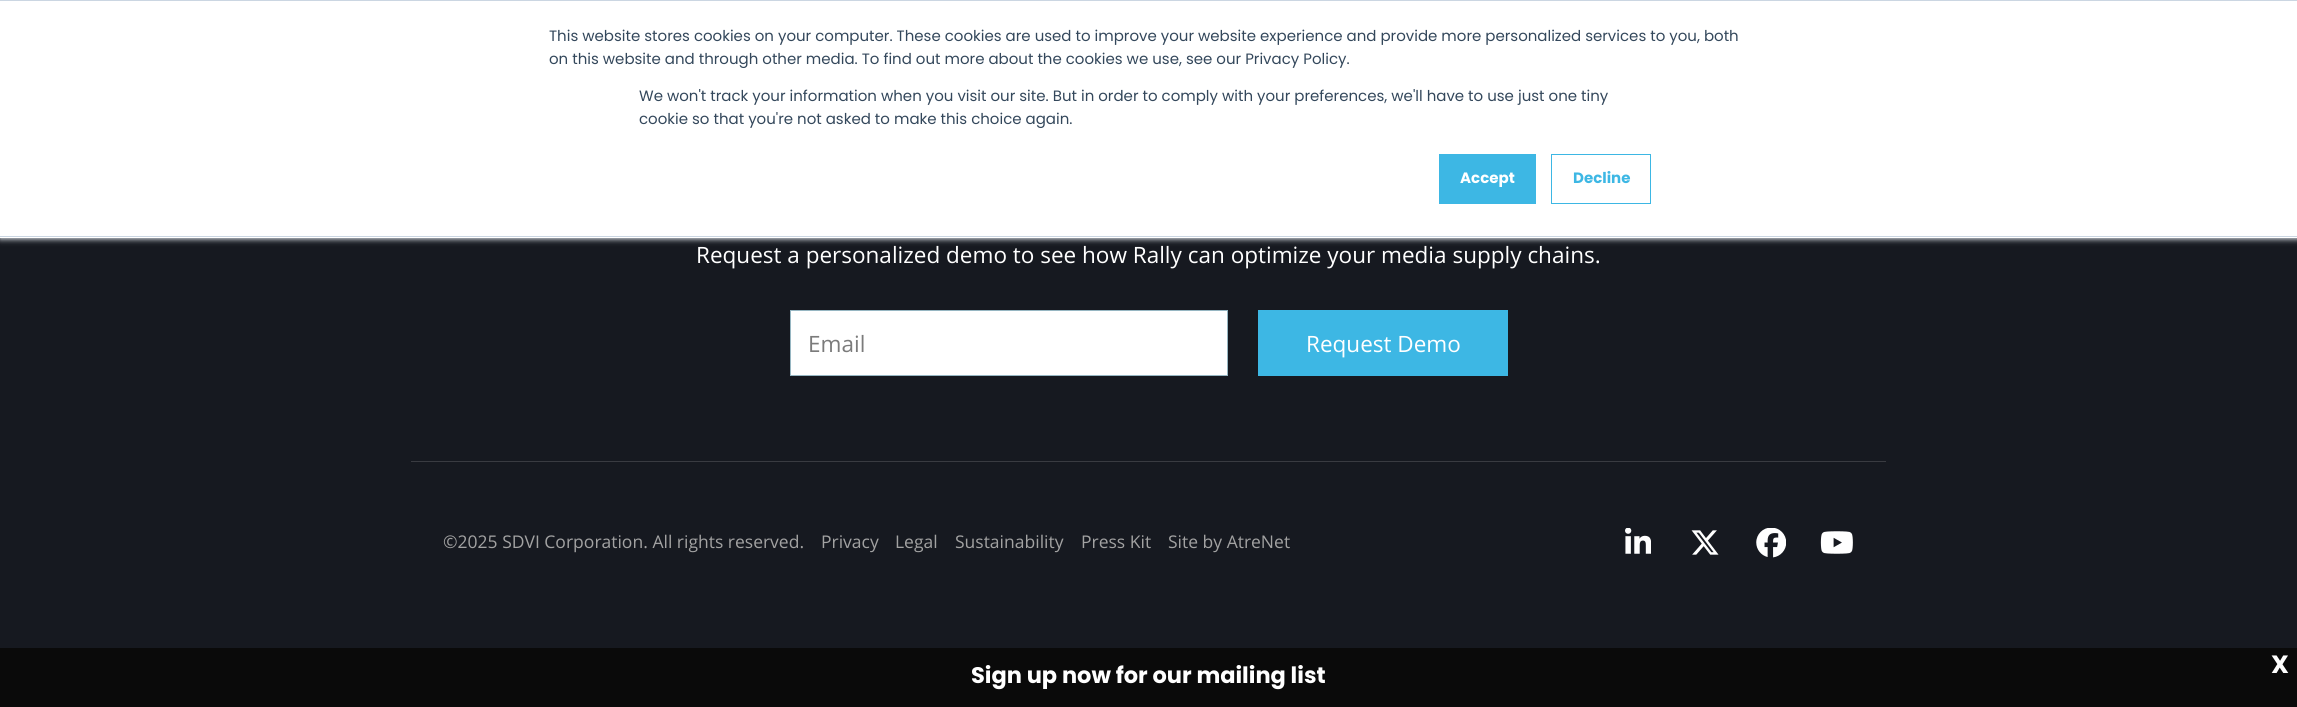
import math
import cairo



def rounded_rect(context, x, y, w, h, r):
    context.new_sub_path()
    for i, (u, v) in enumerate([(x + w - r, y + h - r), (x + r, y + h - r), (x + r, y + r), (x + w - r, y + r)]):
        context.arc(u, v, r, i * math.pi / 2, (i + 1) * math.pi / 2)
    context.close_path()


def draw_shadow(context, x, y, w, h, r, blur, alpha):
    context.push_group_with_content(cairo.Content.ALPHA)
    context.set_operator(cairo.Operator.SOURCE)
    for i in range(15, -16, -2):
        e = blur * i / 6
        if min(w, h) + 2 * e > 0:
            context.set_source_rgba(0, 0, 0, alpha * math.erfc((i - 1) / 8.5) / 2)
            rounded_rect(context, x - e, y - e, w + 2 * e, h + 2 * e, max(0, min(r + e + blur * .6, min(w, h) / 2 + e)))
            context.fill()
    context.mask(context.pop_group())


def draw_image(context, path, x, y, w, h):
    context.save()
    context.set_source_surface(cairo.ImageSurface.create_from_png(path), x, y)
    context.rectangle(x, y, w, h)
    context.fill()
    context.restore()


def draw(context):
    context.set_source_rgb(22 / 255, 25 / 255, 32 / 255)
    context.paint()
    context.set_source_rgb(234 / 255, 240 / 255, 246 / 255)
    draw_shadow(context, 0, 1, 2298, 238, 0, 3, 1)
    context.set_source_rgb(1, 1, 1)
    context.rectangle(0, 1, 2297, 237)
    context.fill()
    context.set_source_rgb(203 / 255, 214 / 255, 226 / 255)
    context.rectangle(0, 0, 2297, 1)
    context.fill()
    context.rectangle(0, 236, 2297, 1)
    context.fill()
    context.set_source_rgb(61 / 255, 183 / 255, 228 / 255)
    context.rectangle(1439, 154, 97, 50)
    context.fill()
    context.rectangle(1551.5, 154.5, 99, 49)
    context.set_line_width(1)
    context.stroke()
    context.set_source_rgb(1, 1, 1)
    context.rectangle(790.5, 310.5, 437, 65)
    context.fill_preserve()
    context.set_source_rgb(150 / 255, 182 / 255, 194 / 255)
    context.stroke()
    context.set_source_rgb(61 / 255, 183 / 255, 228 / 255)
    context.rectangle(1258, 310, 250, 66)
    context.fill()
    context.set_source_rgb(57 / 255, 59 / 255, 65 / 255)
    context.rectangle(411, 461, 1475, 1)
    context.fill()
    draw_image(context, "images/1.png", 1625, 528, 26, 26)
    draw_image(context, "images/2.png", 1691, 530, 28, 25)
    draw_image(context, "images/3.png", 1756, 528, 30, 30)
    draw_image(context, "images/4.png", 1820, 531, 33, 23)
    context.set_source_rgb(10 / 255, 10 / 255, 10 / 255)
    context.rectangle(0, 648, 2297, 59)
    context.fill()
    context.select_font_face("Poppins")
    context.set_font_size(15)
    context.set_source_rgb(51 / 255, 71 / 255, 91 / 255)
    context.move_to(549, 41)
    context.show_text("This website stores cookies on your computer. These cookies are used to improve your website experience and provide more personalized services to you, both")
    context.move_to(549, 64)
    context.show_text("on this website and through other media. To find out more about the cookies we use, see our Privacy Policy.")
    context.move_to(639, 101)
    context.show_text("We won't track your information when you visit our site. But in order to comply with your preferences, we'll have to use just one tiny")
    context.move_to(639, 124)
    context.show_text("cookie so that you're not asked to make this choice again.")
    context.select_font_face("Poppins", cairo.FontSlant.NORMAL, cairo.FontWeight.BOLD)
    context.set_source_rgb(1, 1, 1)
    context.move_to(1460, 183)
    context.show_text("Accept")
    context.set_source_rgb(61 / 255, 183 / 255, 228 / 255)
    context.move_to(1573, 183)
    context.show_text("Decline")
    context.select_font_face("Open Sans")
    context.set_font_size(22.5)
    context.set_source_rgb(1, 1, 1)
    context.move_to(696, 263)
    context.show_text("Request a personalized demo to see how Rally can optimize your media supply chains.")
    context.set_source_rgb(123 / 255, 123 / 255, 123 / 255)
    context.move_to(808, 352)
    context.show_text("Email")
    context.set_source_rgb(1, 1, 1)
    context.move_to(1306, 352)
    context.show_text("Request Demo")
    context.set_font_size(17.5)
    context.set_source_rgb(162 / 255, 162 / 255, 162 / 255)
    context.move_to(443, 548)
    context.show_text("©2025 SDVI Corporation. All rights reserved.")
    context.move_to(821, 548)
    context.show_text("Privacy")
    context.move_to(895, 548)
    context.show_text("Legal")
    context.move_to(955, 548)
    context.show_text("Sustainability")
    context.move_to(1081, 548)
    context.show_text("Press Kit")
    context.move_to(1168, 548)
    context.show_text("Site by AtreNet")
    context.select_font_face("Poppins", cairo.FontSlant.NORMAL, cairo.FontWeight.BOLD)
    context.set_font_size(22.5)
    context.set_source_rgb(1, 1, 1)
    context.move_to(971, 683)
    context.show_text("Sign up now for our mailing list")
    context.set_font_size(25)
    context.move_to(2271, 673)
    context.show_text("X")


surface = cairo.ImageSurface(cairo.Format.RGB24, 2297, 707)
context = cairo.Context(surface)
options = cairo.FontOptions()
options.set_hint_metrics(cairo.HintMetrics.OFF)
options.set_hint_style(cairo.HintStyle.NONE)
context.set_font_options(options)
context.set_miter_limit(4)
draw(context)
surface.write_to_png("out.png")
